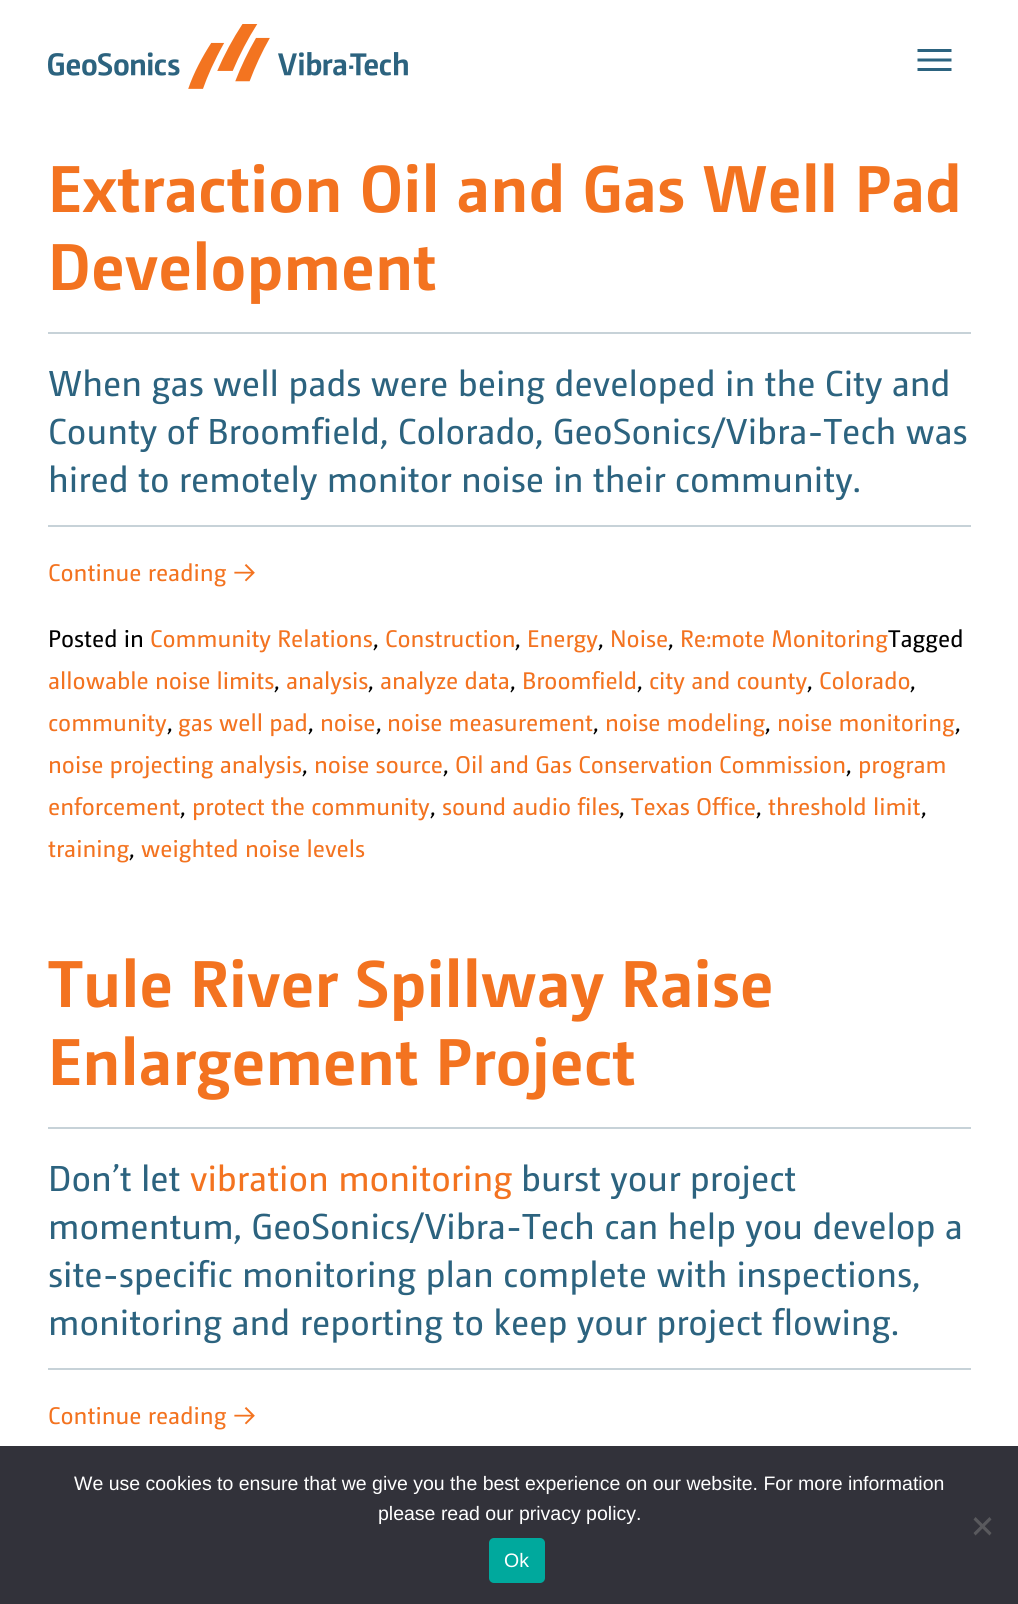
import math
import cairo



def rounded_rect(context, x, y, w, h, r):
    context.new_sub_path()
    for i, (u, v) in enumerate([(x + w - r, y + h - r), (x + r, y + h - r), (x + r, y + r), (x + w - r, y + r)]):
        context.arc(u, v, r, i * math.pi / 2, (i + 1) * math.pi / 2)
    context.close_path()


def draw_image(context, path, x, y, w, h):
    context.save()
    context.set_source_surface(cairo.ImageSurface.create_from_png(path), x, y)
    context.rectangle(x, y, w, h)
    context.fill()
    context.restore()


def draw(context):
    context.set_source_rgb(1, 1, 1)
    context.paint()
    draw_image(context, "images/1.png", 48, 24, 360, 65)
    context.set_source_rgb(44 / 255, 99 / 255, 127 / 255)
    context.new_path()
    context.move_to(917.5, 71)
    context.line_to(917.5, 68)
    context.line_to(951.5, 68)
    context.line_to(951.5, 71)
    context.close_path()
    context.move_to(917.5, 61.5)
    context.line_to(917.5, 58.5)
    context.line_to(951.5, 58.5)
    context.line_to(951.5, 61.5)
    context.close_path()
    context.move_to(917.5, 52)
    context.line_to(917.5, 49)
    context.line_to(951.5, 49)
    context.line_to(951.5, 52)
    context.close_path()
    context.fill()
    context.set_source_rgb(199 / 255, 210 / 255, 216 / 255)
    context.rectangle(48, 332, 923, 2)
    context.fill()
    context.rectangle(48, 525, 923, 2)
    context.fill()
    context.rectangle(48, 1127, 923, 2)
    context.fill()
    context.rectangle(48, 1368, 923, 2)
    context.fill()
    context.set_source_rgb(50 / 255, 50 / 255, 58 / 255)
    context.rectangle(0, 1446, 1018, 158)
    context.fill()
    context.set_source_rgb(89 / 255, 89 / 255, 93 / 255)
    context.new_path()
    context.move_to(989.5, 1517)
    context.line_to(991.5, 1519.5)
    context.line_to(975.5, 1535.5)
    context.line_to(973.5, 1533)
    context.close_path()
    context.fill()
    context.new_path()
    context.move_to(973.5, 1519.5)
    context.line_to(975.5, 1517)
    context.line_to(991.5, 1533)
    context.line_to(989.5, 1535.5)
    context.close_path()
    context.fill()
    context.set_source_rgb(0, 169 / 255, 157 / 255)
    rounded_rect(context, 489, 1538, 56, 45, 5)
    context.fill()
    context.select_font_face("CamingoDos", cairo.FontSlant.NORMAL, cairo.FontWeight.BOLD)
    context.set_font_size(66)
    context.set_source_rgb(243 / 255, 115 / 255, 32 / 255)
    context.move_to(48, 212)
    context.show_text("Extraction Oil and Gas Well Pad")
    context.move_to(48, 290)
    context.show_text("Development")
    context.select_font_face("CamingoDos")
    context.set_font_size(36)
    context.set_source_rgb(44 / 255, 99 / 255, 127 / 255)
    context.move_to(48, 396)
    context.show_text("When gas well pads were being developed in the City and")
    context.move_to(48, 444)
    context.show_text("County of Broomfield, Colorado, GeoSonics/Vibra-Tech was")
    context.move_to(48, 492)
    context.show_text("hired to remotely monitor noise in their community.")
    context.set_font_size(24)
    context.set_source_rgb(243 / 255, 115 / 255, 32 / 255)
    context.move_to(48, 581)
    context.show_text("Continue reading →")
    context.set_source_rgb(0, 0, 0)
    context.move_to(48, 647)
    context.show_text("Posted in")
    context.set_source_rgb(243 / 255, 115 / 255, 32 / 255)
    context.move_to(150, 647)
    context.show_text("Community Relations")
    context.set_source_rgb(0, 0, 0)
    context.move_to(373, 647)
    context.show_text(",")
    context.set_source_rgb(243 / 255, 115 / 255, 32 / 255)
    context.move_to(385, 647)
    context.show_text("Construction")
    context.set_source_rgb(0, 0, 0)
    context.move_to(515, 647)
    context.show_text(",")
    context.set_source_rgb(243 / 255, 115 / 255, 32 / 255)
    context.move_to(527, 647)
    context.show_text("Energy")
    context.set_source_rgb(0, 0, 0)
    context.move_to(598, 647)
    context.show_text(",")
    context.set_source_rgb(243 / 255, 115 / 255, 32 / 255)
    context.move_to(610, 647)
    context.show_text("Noise")
    context.set_source_rgb(0, 0, 0)
    context.move_to(668, 647)
    context.show_text(",")
    context.set_source_rgb(243 / 255, 115 / 255, 32 / 255)
    context.move_to(680, 647)
    context.show_text("Re:mote Monitoring")
    context.set_source_rgb(0, 0, 0)
    context.move_to(888, 647)
    context.show_text("Tagged")
    context.set_source_rgb(243 / 255, 115 / 255, 32 / 255)
    context.move_to(48, 689)
    context.show_text("allowable noise limits")
    context.set_source_rgb(0, 0, 0)
    context.move_to(274, 689)
    context.show_text(",")
    context.set_source_rgb(243 / 255, 115 / 255, 32 / 255)
    context.move_to(286, 689)
    context.show_text("analysis")
    context.set_source_rgb(0, 0, 0)
    context.move_to(368, 689)
    context.show_text(",")
    context.set_source_rgb(243 / 255, 115 / 255, 32 / 255)
    context.move_to(380, 689)
    context.show_text("analyze data")
    context.set_source_rgb(0, 0, 0)
    context.move_to(510, 689)
    context.show_text(",")
    context.set_source_rgb(243 / 255, 115 / 255, 32 / 255)
    context.move_to(522, 689)
    context.show_text("Broomfield")
    context.set_source_rgb(0, 0, 0)
    context.move_to(637, 689)
    context.show_text(",")
    context.set_source_rgb(243 / 255, 115 / 255, 32 / 255)
    context.move_to(649, 689)
    context.show_text("city and county")
    context.set_source_rgb(0, 0, 0)
    context.move_to(807, 689)
    context.show_text(",")
    context.set_source_rgb(243 / 255, 115 / 255, 32 / 255)
    context.move_to(819, 689)
    context.show_text("Colorado")
    context.set_source_rgb(0, 0, 0)
    context.move_to(910, 689)
    context.show_text(",")
    context.set_source_rgb(243 / 255, 115 / 255, 32 / 255)
    context.move_to(48, 731)
    context.show_text("community")
    context.set_source_rgb(0, 0, 0)
    context.move_to(167, 731)
    context.show_text(",")
    context.set_source_rgb(243 / 255, 115 / 255, 32 / 255)
    context.move_to(178, 731)
    context.show_text("gas well pad")
    context.set_source_rgb(0, 0, 0)
    context.move_to(308, 731)
    context.show_text(",")
    context.set_source_rgb(243 / 255, 115 / 255, 32 / 255)
    context.move_to(320, 731)
    context.show_text("noise")
    context.set_source_rgb(0, 0, 0)
    context.move_to(376, 731)
    context.show_text(",")
    context.set_source_rgb(243 / 255, 115 / 255, 32 / 255)
    context.move_to(387, 731)
    context.show_text("noise measurement")
    context.set_source_rgb(0, 0, 0)
    context.move_to(593, 731)
    context.show_text(",")
    context.set_source_rgb(243 / 255, 115 / 255, 32 / 255)
    context.move_to(605, 731)
    context.show_text("noise modeling")
    context.set_source_rgb(0, 0, 0)
    context.move_to(765, 731)
    context.show_text(",")
    context.set_source_rgb(243 / 255, 115 / 255, 32 / 255)
    context.move_to(777, 731)
    context.show_text("noise monitoring")
    context.set_source_rgb(0, 0, 0)
    context.move_to(955, 731)
    context.show_text(",")
    context.set_source_rgb(243 / 255, 115 / 255, 32 / 255)
    context.move_to(48, 773)
    context.show_text("noise projecting analysis")
    context.set_source_rgb(0, 0, 0)
    context.move_to(302, 773)
    context.show_text(",")
    context.set_source_rgb(243 / 255, 115 / 255, 32 / 255)
    context.move_to(314, 773)
    context.show_text("noise source")
    context.set_source_rgb(0, 0, 0)
    context.move_to(443, 773)
    context.show_text(",")
    context.set_source_rgb(243 / 255, 115 / 255, 32 / 255)
    context.move_to(455, 773)
    context.show_text("Oil and Gas Conservation Commission")
    context.set_source_rgb(0, 0, 0)
    context.move_to(846, 773)
    context.show_text(",")
    context.set_source_rgb(243 / 255, 115 / 255, 32 / 255)
    context.move_to(858, 773)
    context.show_text("program")
    context.move_to(48, 815)
    context.show_text("enforcement")
    context.set_source_rgb(0, 0, 0)
    context.move_to(180, 815)
    context.show_text(",")
    context.set_source_rgb(243 / 255, 115 / 255, 32 / 255)
    context.move_to(192, 815)
    context.show_text("protect the community")
    context.set_source_rgb(0, 0, 0)
    context.move_to(430, 815)
    context.show_text(",")
    context.set_source_rgb(243 / 255, 115 / 255, 32 / 255)
    context.move_to(442, 815)
    context.show_text("sound audio files")
    context.set_source_rgb(0, 0, 0)
    context.move_to(619, 815)
    context.show_text(",")
    context.set_source_rgb(243 / 255, 115 / 255, 32 / 255)
    context.move_to(631, 815)
    context.show_text("Texas Office")
    context.set_source_rgb(0, 0, 0)
    context.move_to(756, 815)
    context.show_text(",")
    context.set_source_rgb(243 / 255, 115 / 255, 32 / 255)
    context.move_to(768, 815)
    context.show_text("threshold limit")
    context.set_source_rgb(0, 0, 0)
    context.move_to(921, 815)
    context.show_text(",")
    context.set_source_rgb(243 / 255, 115 / 255, 32 / 255)
    context.move_to(48, 857)
    context.show_text("training")
    context.set_source_rgb(0, 0, 0)
    context.move_to(129, 857)
    context.show_text(",")
    context.set_source_rgb(243 / 255, 115 / 255, 32 / 255)
    context.move_to(141, 857)
    context.show_text("weighted noise levels")
    context.select_font_face("CamingoDos", cairo.FontSlant.NORMAL, cairo.FontWeight.BOLD)
    context.set_font_size(66)
    context.move_to(48, 1007)
    context.show_text("Tule River Spillway Raise")
    context.move_to(48, 1085)
    context.show_text("Enlargement Project")
    context.select_font_face("CamingoDos")
    context.set_font_size(36)
    context.set_source_rgb(44 / 255, 99 / 255, 127 / 255)
    context.move_to(48, 1191)
    context.show_text("Don’t let")
    context.set_source_rgb(243 / 255, 115 / 255, 32 / 255)
    context.move_to(190, 1191)
    context.show_text("vibration monitoring")
    context.set_source_rgb(44 / 255, 99 / 255, 127 / 255)
    context.move_to(521, 1191)
    context.show_text("burst your project")
    context.move_to(48, 1239)
    context.show_text("momentum, GeoSonics/Vibra-Tech can help you develop a")
    context.move_to(48, 1287)
    context.show_text("site-specific monitoring plan complete with inspections,")
    context.move_to(48, 1335)
    context.show_text("monitoring and reporting to keep your project flowing.")
    context.set_font_size(24)
    context.set_source_rgb(243 / 255, 115 / 255, 32 / 255)
    context.move_to(48, 1424)
    context.show_text("Continue reading →")
    context.select_font_face("Liberation Sans")
    context.set_font_size(19.5)
    context.set_source_rgb(1, 1, 1)
    context.move_to(74, 1490)
    context.show_text("We use cookies to ensure that we give you the best experience on our website. For more information")
    context.move_to(378, 1520)
    context.show_text("please read our privacy policy.")
    context.move_to(504, 1567)
    context.show_text("Ok")


surface = cairo.ImageSurface(cairo.Format.RGB24, 1018, 1604)
context = cairo.Context(surface)
options = cairo.FontOptions()
options.set_hint_metrics(cairo.HintMetrics.OFF)
options.set_hint_style(cairo.HintStyle.NONE)
context.set_font_options(options)
context.set_miter_limit(4)
draw(context)
surface.write_to_png("out.png")
